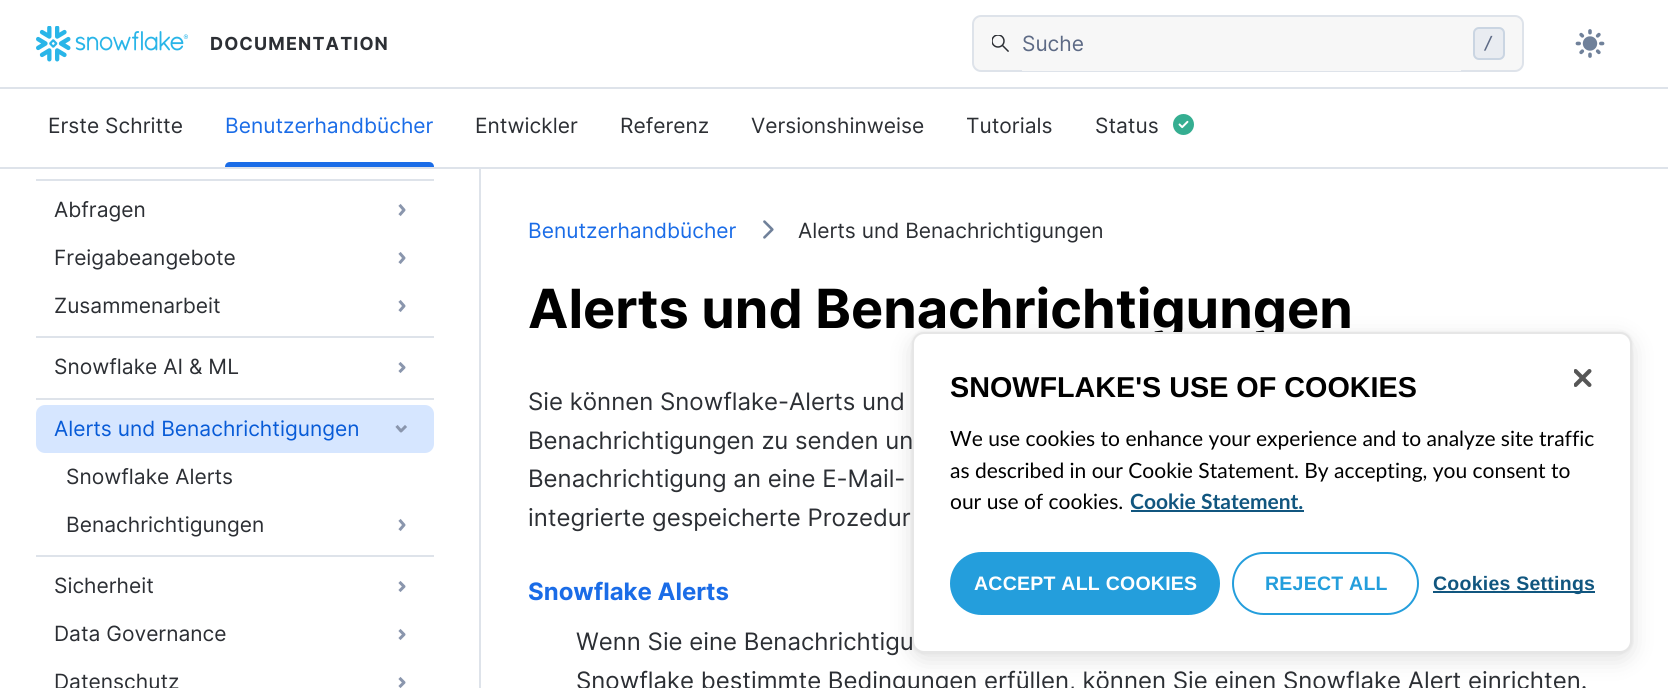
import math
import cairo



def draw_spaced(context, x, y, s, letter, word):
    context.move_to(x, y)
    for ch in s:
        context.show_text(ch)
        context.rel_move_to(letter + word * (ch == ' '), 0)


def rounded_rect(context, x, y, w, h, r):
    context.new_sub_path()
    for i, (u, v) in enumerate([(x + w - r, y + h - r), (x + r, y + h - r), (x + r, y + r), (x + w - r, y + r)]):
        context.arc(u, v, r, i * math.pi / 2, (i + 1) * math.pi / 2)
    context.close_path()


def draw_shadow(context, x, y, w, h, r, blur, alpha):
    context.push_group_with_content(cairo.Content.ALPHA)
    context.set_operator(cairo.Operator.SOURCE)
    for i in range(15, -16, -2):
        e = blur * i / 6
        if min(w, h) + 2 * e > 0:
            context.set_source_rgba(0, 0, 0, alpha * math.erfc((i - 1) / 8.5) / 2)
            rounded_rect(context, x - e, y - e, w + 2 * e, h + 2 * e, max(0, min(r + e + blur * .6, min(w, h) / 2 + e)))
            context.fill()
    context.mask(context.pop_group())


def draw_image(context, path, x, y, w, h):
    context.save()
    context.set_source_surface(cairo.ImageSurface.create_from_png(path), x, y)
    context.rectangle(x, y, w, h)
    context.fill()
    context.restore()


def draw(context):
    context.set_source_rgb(1, 1, 1)
    context.paint()
    context.set_source_rgb(222 / 255, 227 / 255, 234 / 255)
    context.rectangle(0, 87, 1668, 2)
    context.fill()
    draw_image(context, "images/1.png", 36, 26, 152, 36)
    context.set_source_rgb(247 / 255, 247 / 255, 247 / 255)
    rounded_rect(context, 973, 16, 550, 55, 8)
    context.fill_preserve()
    context.set_source_rgb(222 / 255, 227 / 255, 234 / 255)
    context.stroke()
    draw_image(context, "images/2.png", 992, 35, 17, 17)
    context.set_source_rgb(247 / 255, 247 / 255, 247 / 255)
    context.rectangle(1022, 70, 439, 1)
    context.fill()
    context.set_source_rgb(233 / 255, 236 / 255, 241 / 255)
    rounded_rect(context, 1474, 28, 30, 31, 5)
    context.fill_preserve()
    context.set_source_rgb(202 / 255, 213 / 255, 226 / 255)
    context.stroke()
    draw_image(context, "images/3.png", 1575, 29, 30, 29)
    context.set_source_rgb(222 / 255, 227 / 255, 234 / 255)
    context.rectangle(0, 167, 1668, 2)
    context.fill()
    context.set_source_rgb(26 / 255, 108 / 255, 231 / 255)
    context.new_path()
    context.move_to(230, 162)
    context.line_to(429, 162)
    context.curve_to(432, 162, 434, 164, 434, 167)
    context.line_to(225, 167)
    context.curve_to(225, 164, 227, 162, 230, 162)
    context.close_path()
    context.fill()
    draw_image(context, "images/4.png", 1173, 114, 21, 21)
    context.set_source_rgb(222 / 255, 227 / 255, 234 / 255)
    context.rectangle(479, 168, 2, 520)
    context.fill()
    context.rectangle(36, 179, 398, 2)
    context.fill()
    context.new_path()
    context.move_to(400.5, 214)
    context.line_to(404, 210)
    context.line_to(400.5, 206)
    context.move_to(400.5, 262)
    context.line_to(404, 258)
    context.line_to(400.5, 254)
    context.set_source_rgb(138 / 255, 150 / 255, 173 / 255)
    context.set_line_width(3)
    context.set_line_cap(cairo.LineCap.SQUARE)
    context.set_line_join(cairo.LineJoin.ROUND)
    context.stroke()
    context.new_path()
    context.move_to(400.5, 310)
    context.line_to(404, 306)
    context.line_to(400.5, 302)
    context.stroke()
    context.set_source_rgb(222 / 255, 227 / 255, 234 / 255)
    context.rectangle(36, 336, 398, 2)
    context.fill()
    context.new_path()
    context.move_to(400.5, 371)
    context.line_to(404, 367.5)
    context.line_to(400.5, 364)
    context.set_source_rgb(138 / 255, 150 / 255, 173 / 255)
    context.stroke()
    context.set_source_rgb(222 / 255, 227 / 255, 234 / 255)
    context.rectangle(36, 398, 398, 2)
    context.fill()
    context.set_source_rgb(214 / 255, 230 / 255, 1)
    rounded_rect(context, 36, 405, 398, 48, 9)
    context.fill()
    context.new_path()
    context.move_to(397.5, 427)
    context.line_to(401, 431)
    context.line_to(405, 427)
    context.set_source_rgb(138 / 255, 150 / 255, 173 / 255)
    context.stroke()
    context.new_path()
    context.move_to(400.5, 529)
    context.line_to(404, 525)
    context.line_to(400.5, 521)
    context.stroke()
    context.set_source_rgb(222 / 255, 227 / 255, 234 / 255)
    context.rectangle(36, 555, 398, 2)
    context.fill()
    context.new_path()
    context.move_to(400.5, 590)
    context.line_to(404, 586.5)
    context.line_to(400.5, 583)
    context.move_to(400.5, 638)
    context.line_to(404, 634.5)
    context.line_to(400.5, 631)
    context.set_source_rgb(138 / 255, 150 / 255, 173 / 255)
    context.stroke()
    context.new_path()
    context.move_to(400.5, 686)
    context.line_to(404, 682.5)
    context.line_to(400.5, 679)
    context.stroke()
    draw_image(context, "images/5.png", 763, 220, 11, 19)
    context.set_source_rgb(0, 0, 0)
    draw_shadow(context, 912, 332, 720, 321, 12, 1.5, 0.08)
    draw_shadow(context, 912, 338, 720, 321, 12, 12, 0.12)
    context.select_font_face("Inter", cairo.FontSlant.NORMAL, cairo.FontWeight.BOLD)
    context.set_font_size(18)
    context.set_source_rgb(44 / 255, 47 / 255, 52 / 255)
    draw_spaced(context, 210, 50, "DOCUMENTATION", 1.1, 0)
    context.select_font_face("Inter")
    context.set_font_size(21)
    context.set_source_rgb(93 / 255, 106 / 255, 133 / 255)
    context.move_to(1022, 51)
    context.show_text("Suche")
    context.select_font_face("DejaVu Sans Mono")
    context.set_font_size(18)
    context.move_to(1483, 49)
    context.show_text("/")
    context.select_font_face("Inter")
    context.set_font_size(21)
    context.set_source_rgb(44 / 255, 47 / 255, 52 / 255)
    context.move_to(48, 133)
    context.show_text("Erste Schritte")
    context.set_source_rgb(26 / 255, 108 / 255, 231 / 255)
    context.move_to(225, 133)
    context.show_text("Benutzerhandbücher")
    context.set_source_rgb(44 / 255, 47 / 255, 52 / 255)
    context.move_to(475, 133)
    context.show_text("Entwickler")
    context.move_to(620, 133)
    context.show_text("Referenz")
    context.move_to(751, 133)
    context.show_text("Versionshinweise")
    context.move_to(966, 133)
    context.show_text("Tutorials")
    context.move_to(1095, 133)
    context.show_text("Status")
    context.move_to(54, 217)
    context.show_text("Abfragen")
    context.move_to(54, 265)
    context.show_text("Freigabeangebote")
    context.move_to(54, 313)
    context.show_text("Zusammenarbeit")
    context.move_to(54, 374)
    context.show_text("Snowflake AI & ML")
    context.set_source_rgb(8 / 255, 91 / 255, 215 / 255)
    context.move_to(54, 436)
    context.show_text("Alerts und Benachrichtigungen")
    context.set_source_rgb(44 / 255, 47 / 255, 52 / 255)
    context.move_to(66, 484)
    context.show_text("Snowflake Alerts")
    context.move_to(66, 532)
    context.show_text("Benachrichtigungen")
    context.move_to(54, 593)
    context.show_text("Sicherheit")
    context.move_to(54, 641)
    context.show_text("Data Governance")
    context.move_to(54, 689)
    context.show_text("Datenschutz")
    context.set_source_rgb(26 / 255, 108 / 255, 231 / 255)
    context.move_to(528, 238)
    context.show_text("Benutzerhandbücher")
    context.set_source_rgb(44 / 255, 47 / 255, 52 / 255)
    context.move_to(798, 238)
    context.show_text("Alerts und Benachrichtigungen")
    context.select_font_face("Inter", cairo.FontSlant.NORMAL, cairo.FontWeight.BOLD)
    context.set_font_size(54)
    context.set_source_rgb(0, 0, 0)
    context.move_to(528, 328)
    context.show_text("Alerts und Benachrichtigungen")
    context.select_font_face("Inter")
    context.set_font_size(24)
    context.set_source_rgb(44 / 255, 47 / 255, 52 / 255)
    context.move_to(528, 410)
    context.show_text("Sie können Snowflake-Alerts und")
    context.move_to(528, 449)
    context.show_text("Benachrichtigungen zu senden un")
    context.move_to(528, 487)
    context.show_text("Benachrichtigung an eine E-Mail-")
    context.move_to(528, 526)
    context.show_text("integrierte gespeicherte Prozedur")
    context.select_font_face("Inter", cairo.FontSlant.NORMAL, cairo.FontWeight.BOLD)
    context.set_source_rgb(26 / 255, 108 / 255, 231 / 255)
    context.move_to(528, 600)
    context.show_text("Snowflake Alerts")
    context.select_font_face("Inter")
    context.set_source_rgb(44 / 255, 47 / 255, 52 / 255)
    context.move_to(576, 650)
    context.show_text("Wenn Sie eine Benachrichtigu")
    context.move_to(576, 689)
    context.show_text("Snowflake bestimmte Bedingungen erfüllen, können Sie einen Snowflake Alert einrichten.")
    context.set_source_rgb(1, 1, 1)
    rounded_rect(context, 913, 333, 718, 319, 11)
    context.fill_preserve()
    context.set_source_rgb(230 / 255, 230 / 255, 230 / 255)
    context.set_line_width(2)
    context.set_line_cap(cairo.LineCap.BUTT)
    context.set_line_join(cairo.LineJoin.MITER)
    context.stroke()
    draw_image(context, "images/6.png", 1574, 369, 18, 18)
    context.select_font_face("Liberation Sans", cairo.FontSlant.NORMAL, cairo.FontWeight.BOLD)
    context.set_font_size(28.75)
    context.set_source_rgb(0, 0, 0)
    context.move_to(950, 397)
    context.show_text("SNOWFLAKE'S USE OF COOKIES")
    context.select_font_face("Lato")
    context.set_font_size(21)
    context.move_to(950, 446)
    context.show_text("We use cookies to enhance your experience and to analyze site traffic")
    context.move_to(950, 478)
    context.show_text("as described in our Cookie Statement. By accepting, you consent to")
    context.move_to(950, 509)
    context.show_text("our use of cookies.")
    context.select_font_face("Lato", cairo.FontSlant.NORMAL, cairo.FontWeight.BOLD)
    context.set_source_rgb(17 / 255, 86 / 255, 127 / 255)
    context.move_to(1130, 509)
    context.show_text("Cookie Statement.")
    context.rectangle(1131, 510, 173, 2)
    context.fill()
    context.set_source_rgb(36 / 255, 158 / 255, 220 / 255)
    rounded_rect(context, 950, 552, 270, 63, 31.5)
    context.fill()
    context.select_font_face("Liberation Sans", cairo.FontSlant.NORMAL, cairo.FontWeight.BOLD)
    context.set_font_size(19.5)
    context.set_source_rgb(1, 1, 1)
    draw_spaced(context, 974, 590, "ACCEPT ALL COOKIES", 0.25, 0)
    rounded_rect(context, 1233, 553, 185, 61, 30.5)
    context.set_source_rgb(36 / 255, 158 / 255, 220 / 255)
    context.stroke()
    draw_spaced(context, 1265, 590, "REJECT ALL", 0.25, 0)
    context.set_source_rgb(17 / 255, 86 / 255, 127 / 255)
    context.rectangle(1433, 591, 162, 2)
    context.fill()
    draw_spaced(context, 1433, 590, "Cookies Settings", 0.25, 0)


surface = cairo.ImageSurface(cairo.Format.RGB24, 1668, 688)
context = cairo.Context(surface)
options = cairo.FontOptions()
options.set_hint_metrics(cairo.HintMetrics.OFF)
options.set_hint_style(cairo.HintStyle.NONE)
context.set_font_options(options)
context.set_miter_limit(4)
draw(context)
surface.write_to_png("out.png")
